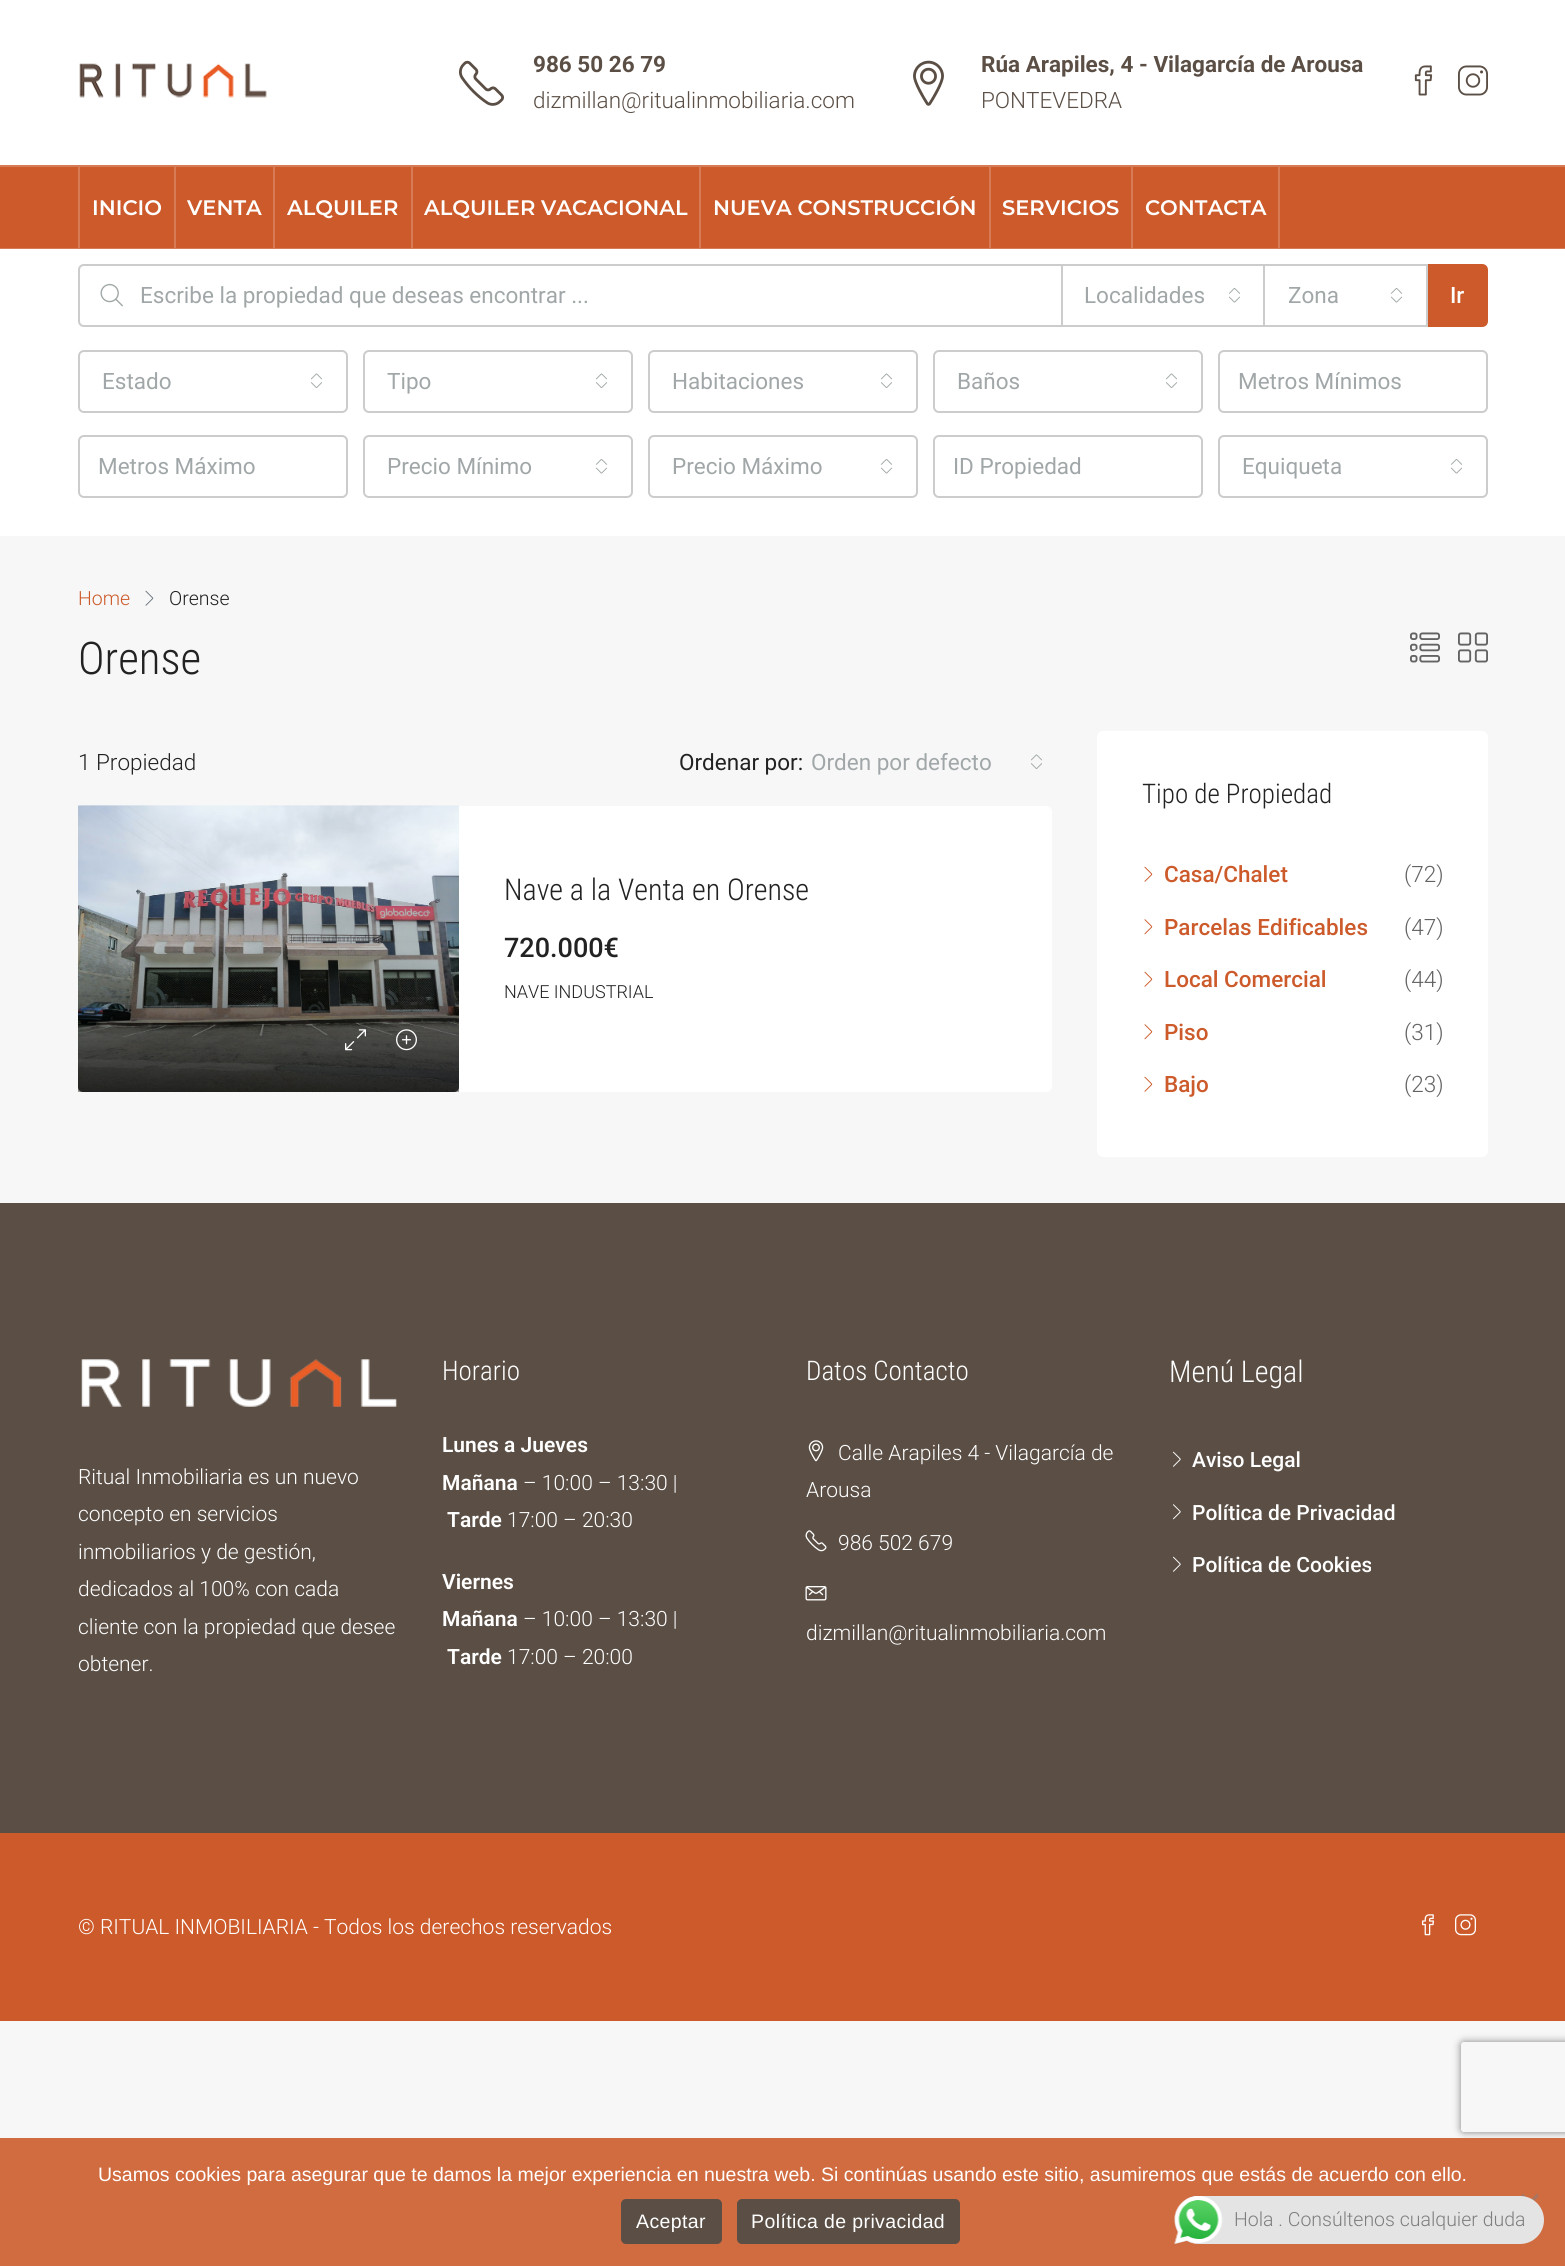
import math
import cairo



def draw_spaced(context, x, y, s, letter, word):
    context.move_to(x, y)
    for ch in s:
        context.show_text(ch)
        context.rel_move_to(letter + word * (ch == ' '), 0)


def rounded_rect(context, x, y, w, h, r):
    context.new_sub_path()
    for i, (u, v) in enumerate([(x + w - r, y + h - r), (x + r, y + h - r), (x + r, y + r), (x + w - r, y + r)]):
        context.arc(u, v, r, i * math.pi / 2, (i + 1) * math.pi / 2)
    context.close_path()


def draw_shadow(context, x, y, w, h, r, blur, alpha):
    context.push_group_with_content(cairo.Content.ALPHA)
    context.set_operator(cairo.Operator.SOURCE)
    for i in range(15, -16, -2):
        e = blur * i / 6
        if min(w, h) + 2 * e > 0:
            context.set_source_rgba(0, 0, 0, alpha * math.erfc((i - 1) / 8.5) / 2)
            rounded_rect(context, x - e, y - e, w + 2 * e, h + 2 * e, max(0, min(r + e + blur * .6, min(w, h) / 2 + e)))
            context.fill()
    context.mask(context.pop_group())


def draw_image(context, path, x, y, w, h):
    context.save()
    context.set_source_surface(cairo.ImageSurface.create_from_png(path), x, y)
    context.rectangle(x, y, w, h)
    context.fill()
    context.restore()


def draw(context):
    context.set_source_rgb(247 / 255, 247 / 255, 247 / 255)
    context.paint()
    context.set_source_rgb(1, 1, 1)
    context.rectangle(0, 0, 1565, 165)
    context.fill()
    draw_image(context, "images/1.png", 79, 63, 188, 35)
    draw_image(context, "images/2.png", 459, 60, 45, 46)
    draw_image(context, "images/3.png", 913, 60, 31, 46)
    draw_image(context, "images/4.png", 1414, 65, 19, 31)
    draw_image(context, "images/5.png", 1458, 65, 30, 31)
    context.set_source_rgb(204 / 255, 90 / 255, 42 / 255)
    context.rectangle(0, 167, 1565, 81)
    context.fill()
    context.set_source_rgb(214 / 255, 123 / 255, 85 / 255)
    context.rectangle(0, 248, 1565, 1)
    context.fill()
    context.rectangle(0, 165, 1565, 2)
    context.fill()
    context.rectangle(174, 167, 2, 81)
    context.fill()
    context.rectangle(78, 167, 2, 81)
    context.fill()
    context.rectangle(273, 167, 2, 81)
    context.fill()
    context.rectangle(411, 167, 2, 81)
    context.fill()
    context.rectangle(699, 167, 2, 81)
    context.fill()
    context.rectangle(989, 167, 2, 81)
    context.fill()
    context.rectangle(1131, 167, 2, 81)
    context.fill()
    context.rectangle(1278, 167, 2, 81)
    context.fill()
    context.set_source_rgb(1, 1, 1)
    context.rectangle(0, 249, 1565, 287)
    context.fill()
    context.new_path()
    context.move_to(84, 265)
    context.line_to(1063, 265)
    context.line_to(1063, 326)
    context.line_to(84, 326)
    context.curve_to(81, 326, 79, 324, 79, 321)
    context.line_to(79, 270)
    context.curve_to(79, 267, 81, 265, 84, 265)
    context.close_path()
    context.set_source_rgb(204 / 255, 204 / 255, 204 / 255)
    context.stroke()
    draw_image(context, "images/6.png", 100, 283, 23, 24)
    context.set_source_rgb(1, 1, 1)
    context.rectangle(1063, 266, 1, 59)
    context.fill()
    context.rectangle(1062, 265, 203, 61)
    context.set_source_rgb(204 / 255, 204 / 255, 204 / 255)
    context.stroke()
    draw_image(context, "images/7.png", 1228, 288, 13, 15)
    context.set_source_rgb(204 / 255, 90 / 255, 42 / 255)
    context.new_path()
    context.move_to(1426, 265)
    context.line_to(1482, 265)
    context.curve_to(1485, 265, 1487, 267, 1487, 270)
    context.line_to(1487, 321)
    context.curve_to(1487, 324, 1485, 326, 1482, 326)
    context.line_to(1426, 326)
    context.close_path()
    context.fill_preserve()
    context.stroke()
    context.set_source_rgb(1, 1, 1)
    context.rectangle(1264, 265, 163, 61)
    context.fill_preserve()
    context.set_source_rgb(204 / 255, 204 / 255, 204 / 255)
    context.stroke()
    draw_image(context, "images/7.png", 1390, 288, 13, 15)
    rounded_rect(context, 79, 351, 268, 61, 5)
    context.stroke()
    draw_image(context, "images/8.png", 311, 373, 11, 15)
    rounded_rect(context, 364, 351, 268, 61, 5)
    context.stroke()
    draw_image(context, "images/8.png", 596, 373, 11, 15)
    rounded_rect(context, 649, 351, 268, 61, 5)
    context.stroke()
    draw_image(context, "images/8.png", 881, 373, 11, 15)
    rounded_rect(context, 934, 351, 268, 61, 5)
    context.stroke()
    draw_image(context, "images/8.png", 1166, 373, 11, 15)
    rounded_rect(context, 1219, 351, 268, 61, 5)
    context.stroke()
    rounded_rect(context, 79, 436, 268, 61, 5)
    context.stroke()
    rounded_rect(context, 364, 436, 268, 61, 5)
    context.stroke()
    draw_image(context, "images/7.png", 595, 459, 13, 15)
    rounded_rect(context, 649, 436, 268, 61, 5)
    context.stroke()
    draw_image(context, "images/7.png", 880, 459, 13, 15)
    rounded_rect(context, 934, 436, 268, 61, 5)
    context.stroke()
    rounded_rect(context, 1219, 436, 268, 61, 5)
    context.stroke()
    draw_image(context, "images/7.png", 1450, 459, 13, 15)
    draw_image(context, "images/9.png", 145, 590, 9, 16)
    draw_image(context, "images/10.png", 1410, 632, 30, 31)
    draw_image(context, "images/11.png", 1458, 632, 30, 31)
    draw_image(context, "images/12.png", 1031, 754, 11, 15)
    context.set_source_rgb(1, 1, 1)
    rounded_rect(context, 78, 806, 974, 286, 6)
    context.fill()
    draw_image(context, "images/13.png", 79, 805, 379, 287)
    draw_image(context, "images/14.png", 78, 805, 381, 287)
    gradient = cairo.LinearGradient(269, 806, 269, 1092)
    gradient.add_color_stop_rgba(0, 0, 0, 0, 0)
    gradient.add_color_stop_rgba(0.5, 0, 0, 0, 0)
    gradient.add_color_stop_rgba(1, 0, 0, 0, 0.75)
    context.set_source(gradient)
    rounded_rect(context, 78, 806, 381, 286, 5)
    context.fill()
    draw_image(context, "images/15.png", 345, 1029, 21, 22)
    draw_image(context, "images/16.png", 396, 1029, 21, 22)
    context.set_source_rgb(1, 1, 1)
    rounded_rect(context, 1097, 731, 391, 426, 6)
    context.fill()
    draw_image(context, "images/17.png", 1144, 866, 9, 16)
    draw_image(context, "images/18.png", 1144, 919, 9, 16)
    draw_image(context, "images/17.png", 1144, 971, 9, 16)
    draw_image(context, "images/18.png", 1144, 1024, 9, 16)
    draw_image(context, "images/17.png", 1144, 1076, 9, 16)
    context.set_source_rgb(90 / 255, 78 / 255, 69 / 255)
    context.rectangle(0, 1203, 1565, 630)
    context.fill()
    draw_image(context, "images/19.png", 81, 1359, 316, 48)
    draw_image(context, "images/20.png", 808, 1440, 16, 22)
    draw_image(context, "images/21.png", 805, 1530, 22, 22)
    draw_image(context, "images/22.png", 805, 1586, 22, 15)
    draw_image(context, "images/23.png", 1173, 1451, 8, 16)
    draw_image(context, "images/24.png", 1173, 1504, 8, 16)
    draw_image(context, "images/23.png", 1173, 1556, 8, 16)
    context.set_source_rgb(204 / 255, 90 / 255, 42 / 255)
    context.rectangle(0, 1833, 1565, 188)
    context.fill()
    draw_image(context, "images/25.png", 1421, 1914, 13, 22)
    draw_image(context, "images/26.png", 1455, 1914, 21, 22)
    context.save()
    context.set_fill_rule(cairo.FillRule.EVEN_ODD)
    context.new_path()
    context.move_to(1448, 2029)
    context.line_to(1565, 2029)
    context.line_to(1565, 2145)
    context.line_to(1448, 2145)
    context.close_path()
    context.move_to(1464, 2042)
    context.line_to(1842, 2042)
    context.curve_to(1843.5, 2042, 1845, 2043.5, 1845, 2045)
    context.line_to(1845, 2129)
    context.curve_to(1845, 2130.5, 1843.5, 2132, 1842, 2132)
    context.line_to(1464, 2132)
    context.curve_to(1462.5, 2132, 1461, 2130.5, 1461, 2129)
    context.line_to(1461, 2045)
    context.curve_to(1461, 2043.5, 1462.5, 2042, 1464, 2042)
    context.close_path()
    context.clip()
    context.set_source_rgb(128 / 255, 128 / 255, 128 / 255)
    draw_shadow(context, 1461, 2042, 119, 90, 3, 4, 1)
    context.restore()
    context.set_source_rgba(204 / 255, 90 / 255, 42 / 255, 0.89)
    context.rectangle(0, 2138, 1565, 128)
    context.fill()
    context.set_source_rgb(168 / 255, 118 / 255, 96 / 255)
    context.new_path()
    context.move_to(1537, 2193.5)
    context.line_to(1539, 2196)
    context.line_to(1523, 2212)
    context.line_to(1521, 2209.5)
    context.close_path()
    context.fill()
    context.new_path()
    context.move_to(1521, 2196)
    context.line_to(1523, 2193.5)
    context.line_to(1539, 2209.5)
    context.line_to(1537, 2212)
    context.close_path()
    context.fill()
    context.set_source_rgb(90 / 255, 78 / 255, 69 / 255)
    rounded_rect(context, 621, 2199, 101, 45, 5)
    context.fill()
    rounded_rect(context, 737, 2199, 223, 45, 5)
    context.fill()
    context.set_source_rgb(228 / 255, 228 / 255, 228 / 255)
    rounded_rect(context, 1175, 2196, 369, 48, 24)
    context.fill()
    draw_image(context, "images/27.png", 1174, 2196, 49, 48)
    context.select_font_face("Roboto", cairo.FontSlant.NORMAL, cairo.FontWeight.BOLD)
    context.set_font_size(22.5)
    context.set_source_rgb(90 / 255, 78 / 255, 69 / 255)
    context.move_to(533, 72)
    context.show_text("986 50 26 79")
    context.select_font_face("Roboto Light")
    context.move_to(533, 108)
    context.show_text("dizmillan@ritualinmobiliaria.com")
    context.select_font_face("Roboto", cairo.FontSlant.NORMAL, cairo.FontWeight.BOLD)
    context.move_to(981, 72)
    context.show_text("Rúa Arapiles, 4 - Vilagarcía de Arousa")
    context.select_font_face("Roboto Light")
    context.move_to(981, 108)
    context.show_text("PONTEVEDRA")
    context.select_font_face("Montserrat Thin")
    context.set_font_size(21)
    context.set_source_rgb(1, 1, 1)
    context.move_to(92, 215)
    context.show_text("INICIO")
    context.move_to(187, 215)
    context.show_text("VENTA")
    context.move_to(287, 215)
    context.show_text("ALQUILER")
    context.move_to(424, 215)
    context.show_text("ALQUILER VACACIONAL")
    context.move_to(713, 215)
    context.show_text("NUEVA CONSTRUCCIÓN")
    context.move_to(1002, 215)
    context.show_text("SERVICIOS")
    context.move_to(1145, 215)
    context.show_text("CONTACTA")
    context.select_font_face("Roboto")
    context.set_font_size(22.5)
    context.set_source_rgb(161 / 255, 167 / 255, 168 / 255)
    context.move_to(140, 303)
    context.show_text("Escribe la propiedad que deseas encontrar ...")
    context.move_to(1084, 303)
    context.show_text("Localidades")
    context.move_to(1288, 303)
    context.show_text("Zona")
    context.select_font_face("Roboto Medium")
    context.set_source_rgb(1, 1, 1)
    context.move_to(1450, 303)
    context.show_text("Ir")
    context.select_font_face("Roboto")
    context.set_source_rgb(161 / 255, 167 / 255, 168 / 255)
    context.move_to(102, 389)
    context.show_text("Estado")
    context.move_to(387, 389)
    context.show_text("Tipo")
    context.move_to(672, 389)
    context.show_text("Habitaciones")
    context.move_to(957, 389)
    context.show_text("Baños")
    context.move_to(1238, 389)
    context.show_text("Metros Mínimos")
    context.move_to(98, 474)
    context.show_text("Metros Máximo")
    context.move_to(387, 474)
    context.show_text("Precio Mínimo")
    context.move_to(672, 474)
    context.show_text("Precio Máximo")
    context.move_to(953, 474)
    context.show_text("ID Propiedad")
    context.move_to(1242, 474)
    context.show_text("Equiqueta")
    context.select_font_face("Roboto Light")
    context.set_font_size(19.5)
    context.set_source_rgb(204 / 255, 90 / 255, 42 / 255)
    context.move_to(78, 605)
    context.show_text("Home")
    context.set_source_rgb(34 / 255, 34 / 255, 34 / 255)
    context.move_to(169, 605)
    context.show_text("Orense")
    context.select_font_face("Roboto Condensed Light")
    context.set_font_size(45)
    context.move_to(78, 674)
    context.show_text("Orense")
    context.select_font_face("Roboto Light")
    context.set_font_size(22.5)
    context.move_to(78, 770)
    context.show_text("1 Propiedad")
    context.select_font_face("Roboto")
    context.move_to(679, 770)
    context.show_text("Ordenar por:")
    context.set_source_rgb(161 / 255, 167 / 255, 168 / 255)
    context.move_to(811, 770)
    context.show_text("Orden por defecto")
    context.select_font_face("Roboto Condensed Light")
    context.set_font_size(30)
    context.set_source_rgb(34 / 255, 34 / 255, 34 / 255)
    context.move_to(504, 900)
    context.show_text("Nave a la Venta en Orense")
    context.select_font_face("Roboto Medium")
    context.set_font_size(27)
    context.move_to(504, 957)
    context.show_text("720.000€")
    context.select_font_face("Roboto Light")
    context.set_font_size(18)
    context.move_to(504, 998)
    context.show_text("NAVE INDUSTRIAL")
    context.select_font_face("Roboto Condensed Light")
    context.set_font_size(27)
    context.move_to(1142, 803)
    context.show_text("Tipo de Propiedad")
    context.select_font_face("Roboto Medium")
    context.set_font_size(22.5)
    context.set_source_rgb(204 / 255, 90 / 255, 42 / 255)
    context.move_to(1164, 882)
    context.show_text("Casa/Chalet")
    context.select_font_face("Roboto Light")
    context.set_source_rgb(99 / 255, 99 / 255, 99 / 255)
    context.move_to(1404, 882)
    context.show_text("(72)")
    context.select_font_face("Roboto Medium")
    context.set_source_rgb(204 / 255, 90 / 255, 42 / 255)
    context.move_to(1164, 935)
    context.show_text("Parcelas Edificables")
    context.select_font_face("Roboto Light")
    context.set_source_rgb(99 / 255, 99 / 255, 99 / 255)
    context.move_to(1404, 935)
    context.show_text("(47)")
    context.select_font_face("Roboto Medium")
    context.set_source_rgb(204 / 255, 90 / 255, 42 / 255)
    context.move_to(1164, 987)
    context.show_text("Local Comercial")
    context.select_font_face("Roboto Light")
    context.set_source_rgb(99 / 255, 99 / 255, 99 / 255)
    context.move_to(1404, 987)
    context.show_text("(44)")
    context.select_font_face("Roboto Medium")
    context.set_source_rgb(204 / 255, 90 / 255, 42 / 255)
    context.move_to(1164, 1040)
    context.show_text("Piso")
    context.select_font_face("Roboto Light")
    context.set_source_rgb(99 / 255, 99 / 255, 99 / 255)
    context.move_to(1404, 1040)
    context.show_text("(31)")
    context.select_font_face("Roboto Medium")
    context.set_source_rgb(204 / 255, 90 / 255, 42 / 255)
    context.move_to(1164, 1092)
    context.show_text("Bajo")
    context.select_font_face("Roboto Light")
    context.set_source_rgb(99 / 255, 99 / 255, 99 / 255)
    context.move_to(1404, 1092)
    context.show_text("(23)")
    context.set_font_size(21)
    context.set_source_rgb(1, 1, 1)
    context.move_to(78, 1484)
    context.show_text("Ritual Inmobiliaria es un nuevo")
    context.move_to(78, 1521)
    context.show_text("concepto en servicios")
    context.move_to(78, 1559)
    context.show_text("inmobiliarios y de gestión,")
    context.move_to(78, 1596)
    context.show_text("dedicados al 100% con cada")
    context.move_to(78, 1634)
    context.show_text("cliente con la propiedad que desee")
    context.move_to(78, 1671)
    context.show_text("obtener.")
    context.select_font_face("Roboto Condensed Light")
    context.set_font_size(27)
    context.move_to(442, 1380)
    context.show_text("Horario")
    context.select_font_face("Roboto SemiBold")
    context.set_font_size(21)
    context.move_to(442, 1452)
    context.show_text("Lunes a Jueves")
    context.move_to(442, 1490)
    context.show_text("Mañana")
    context.select_font_face("Roboto Light")
    context.move_to(523, 1490)
    context.show_text("– 10:00 – 13:30 |")
    context.select_font_face("Roboto SemiBold")
    context.move_to(447, 1527)
    context.show_text("Tarde")
    context.select_font_face("Roboto Light")
    context.move_to(507, 1527)
    context.show_text("17:00 – 20:30")
    context.select_font_face("Roboto SemiBold")
    context.move_to(442, 1589)
    context.show_text("Viernes")
    context.move_to(442, 1626)
    context.show_text("Mañana")
    context.select_font_face("Roboto Light")
    context.move_to(523, 1626)
    context.show_text("– 10:00 – 13:30 |")
    context.select_font_face("Roboto SemiBold")
    context.move_to(447, 1664)
    context.show_text("Tarde")
    context.select_font_face("Roboto Light")
    context.move_to(507, 1664)
    context.show_text("17:00 – 20:00")
    context.select_font_face("Roboto Condensed Light")
    context.set_font_size(27)
    context.move_to(806, 1380)
    context.show_text("Datos Contacto")
    context.select_font_face("Roboto Light")
    context.set_font_size(21)
    context.move_to(838, 1460)
    context.show_text("Calle Arapiles 4 - Vilagarcía de")
    context.move_to(806, 1497)
    context.show_text("Arousa")
    context.move_to(838, 1550)
    context.show_text("986 502 679")
    context.move_to(806, 1640)
    context.show_text("dizmillan@ritualinmobiliaria.com")
    context.select_font_face("Roboto Condensed Light")
    context.set_font_size(30)
    context.move_to(1169, 1382)
    context.show_text("Menú Legal")
    context.select_font_face("Roboto Medium")
    context.set_font_size(21)
    context.move_to(1192, 1467)
    context.show_text("Aviso Legal")
    context.move_to(1192, 1520)
    context.show_text("Política de Privacidad")
    context.move_to(1192, 1572)
    context.show_text("Política de Cookies")
    context.select_font_face("Roboto Light")
    context.move_to(78, 1934)
    context.show_text("© RITUAL INMOBILIARIA - Todos los derechos reservados")
    context.select_font_face("Liberation Sans")
    context.set_font_size(19.5)
    context.move_to(98, 2181)
    context.show_text("Usamos cookies para asegurar que te damos la mejor experiencia en nuestra web. Si continúas usando este sitio, asumiremos que estás de acuerdo con ello.")
    draw_spaced(context, 636, 2228, "Aceptar", 0.4, 0)
    draw_spaced(context, 751, 2228, "Política de privacidad", 0.4, 0)
    context.select_font_face("Roboto Light")
    context.set_source_rgb(127 / 255, 125 / 255, 125 / 255)
    context.move_to(1234, 2226)
    context.show_text("Hola . Consúltenos cualquier duda")


surface = cairo.ImageSurface(cairo.Format.RGB24, 1565, 2266)
context = cairo.Context(surface)
options = cairo.FontOptions()
options.set_hint_metrics(cairo.HintMetrics.OFF)
options.set_hint_style(cairo.HintStyle.NONE)
context.set_font_options(options)
context.set_miter_limit(4)
draw(context)
surface.write_to_png("out.png")
